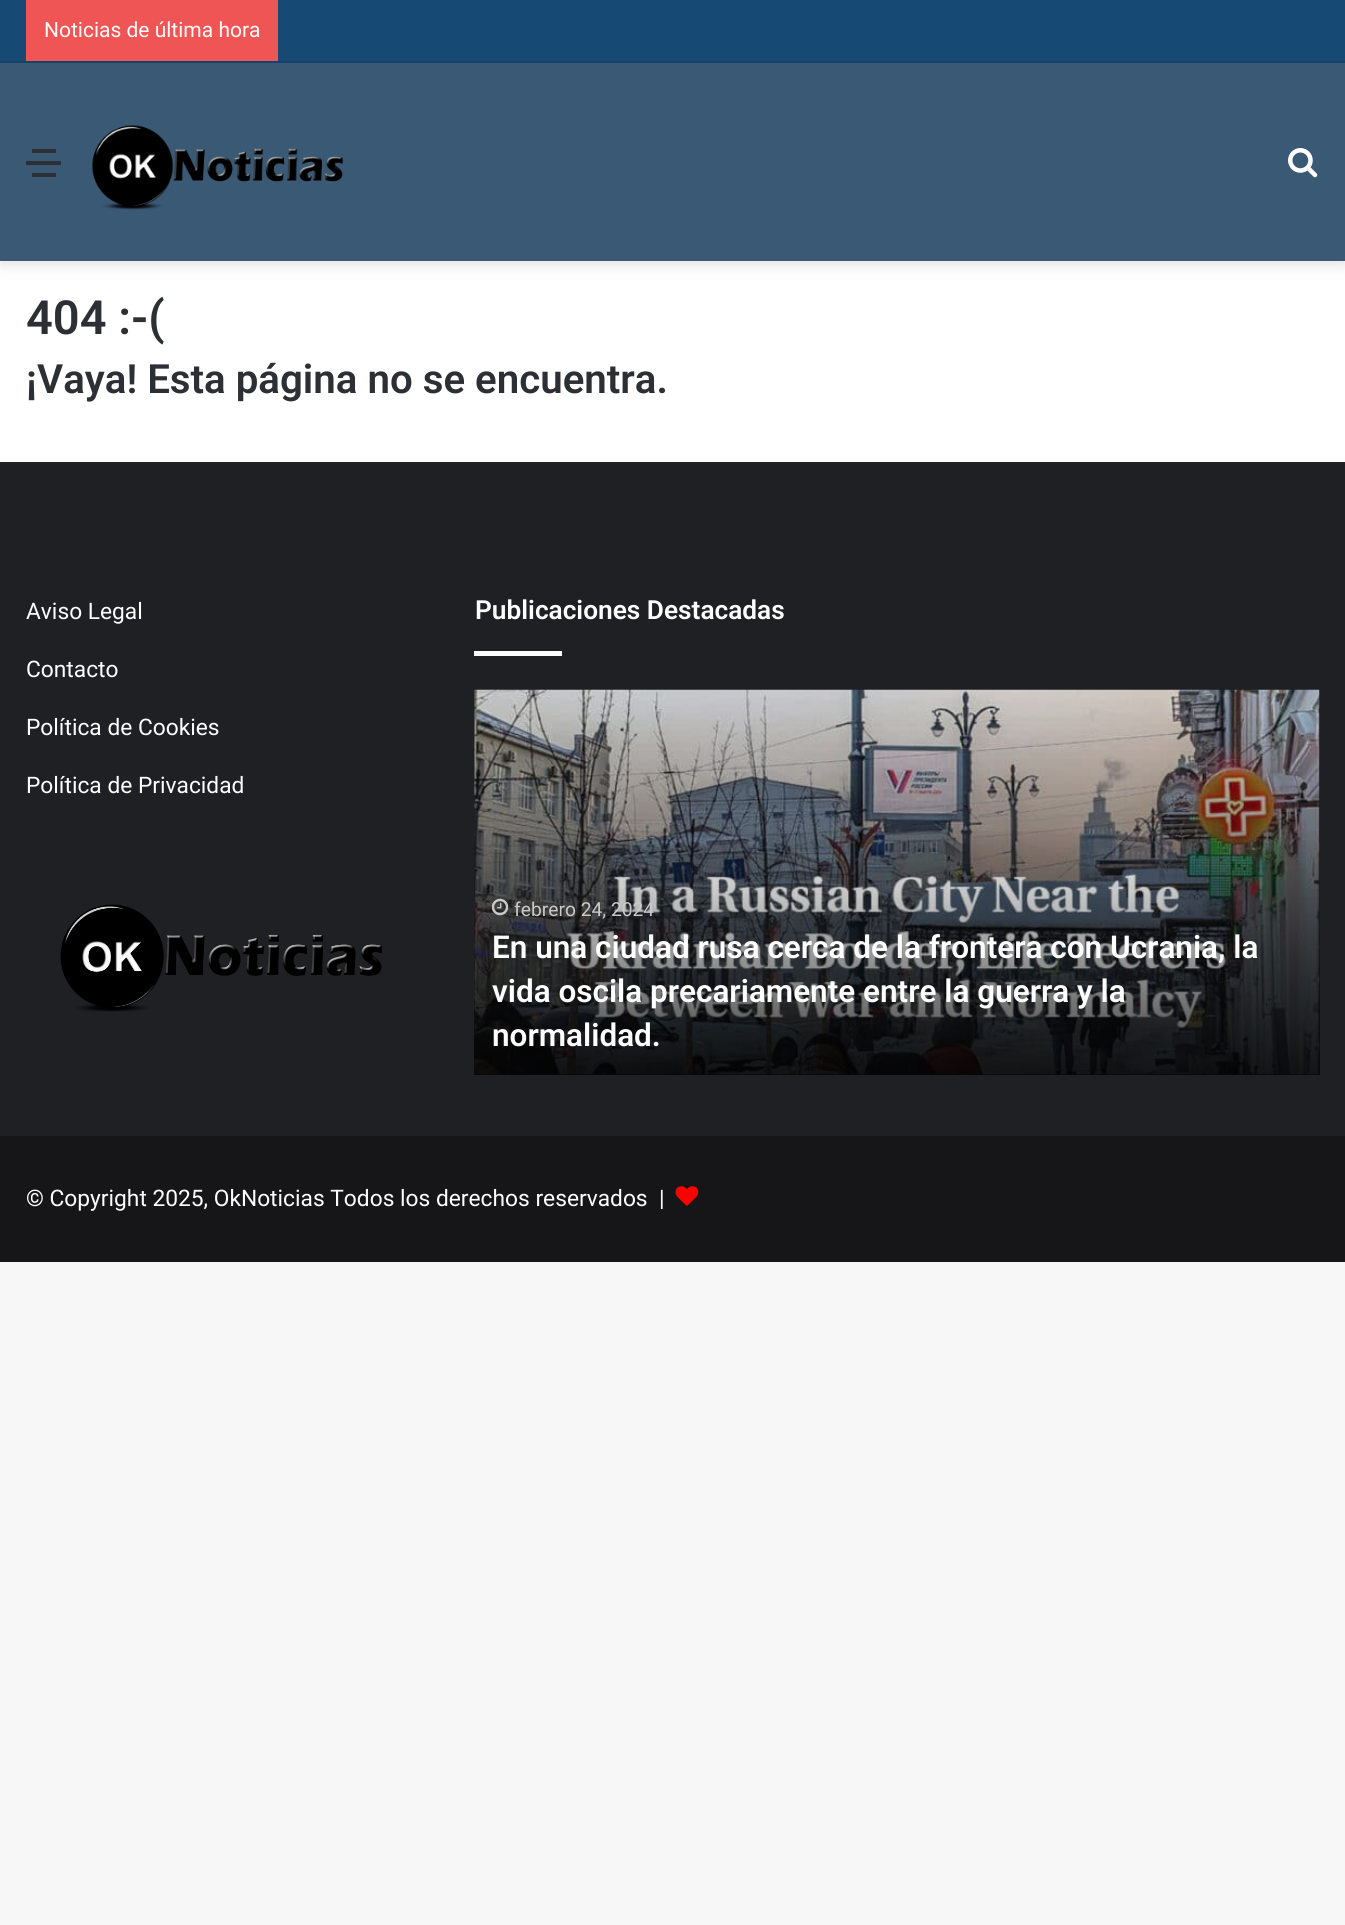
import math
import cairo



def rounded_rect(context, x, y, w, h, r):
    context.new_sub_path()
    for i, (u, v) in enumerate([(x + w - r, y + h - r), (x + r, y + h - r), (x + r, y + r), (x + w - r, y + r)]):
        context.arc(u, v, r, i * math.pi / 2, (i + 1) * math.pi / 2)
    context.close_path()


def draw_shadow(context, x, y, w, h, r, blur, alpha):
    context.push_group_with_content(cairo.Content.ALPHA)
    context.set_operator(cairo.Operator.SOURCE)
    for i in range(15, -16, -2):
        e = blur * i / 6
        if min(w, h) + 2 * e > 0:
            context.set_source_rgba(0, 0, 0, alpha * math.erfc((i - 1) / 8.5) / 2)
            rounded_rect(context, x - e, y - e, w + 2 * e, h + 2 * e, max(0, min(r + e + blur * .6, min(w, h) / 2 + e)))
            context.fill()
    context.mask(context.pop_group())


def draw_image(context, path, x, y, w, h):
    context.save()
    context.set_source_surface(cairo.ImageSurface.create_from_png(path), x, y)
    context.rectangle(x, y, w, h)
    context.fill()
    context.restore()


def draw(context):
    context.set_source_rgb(247 / 255, 247 / 255, 247 / 255)
    context.paint()
    context.set_source_rgb(1, 1, 1)
    context.rectangle(0, 261, 1345, 201)
    context.fill()
    context.set_source_rgb(0, 0, 0)
    draw_shadow(context, 0, 68, 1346, 198, 0, 6, 0.1)
    context.set_source_rgb(23 / 255, 73 / 255, 117 / 255)
    context.rectangle(0, 0, 1345, 61)
    context.fill()
    context.set_source_rgb(21 / 255, 66 / 255, 105 / 255)
    context.rectangle(0, 61, 1345, 2)
    context.fill()
    context.set_source_rgb(240 / 255, 85 / 255, 85 / 255)
    context.rectangle(26, 0, 252, 61)
    context.fill()
    context.set_source_rgb(58 / 255, 89 / 255, 117 / 255)
    context.rectangle(0, 63, 1345, 198)
    context.fill()
    context.set_source_rgb(44 / 255, 47 / 255, 52 / 255)
    context.rectangle(26, 161, 35, 4)
    context.fill()
    context.rectangle(32, 149, 24, 4)
    context.fill()
    context.rectangle(32, 173, 24, 4)
    context.fill()
    draw_image(context, "images/1.png", 92, 125, 251, 85)
    draw_image(context, "images/2.png", 1288, 148, 30, 30)
    context.set_source_rgb(31 / 255, 32 / 255, 36 / 255)
    context.rectangle(0, 462, 1345, 674)
    context.fill()
    draw_image(context, "images/3.png", 60, 904, 322, 108)
    context.set_source_rgb(253 / 255, 253 / 255, 253 / 255)
    context.rectangle(474, 651, 88, 5)
    context.fill()
    draw_image(context, "images/4.png", 474, 689, 846, 386)
    gradient = cairo.LinearGradient(897, 824, 897, 1075)
    gradient.add_color_stop_rgba(0, 0, 0, 0, 0)
    gradient.add_color_stop_rgba(1, 0, 0, 0, 0.75)
    context.set_source(gradient)
    context.rectangle(474, 831, 846, 244)
    context.fill()
    draw_image(context, "images/5.png", 492, 898, 17, 18)
    context.set_source_rgb(22 / 255, 22 / 255, 25 / 255)
    context.rectangle(0, 1136, 1345, 126)
    context.fill()
    draw_image(context, "images/6.png", 675, 1186, 24, 20)
    context.select_font_face("Roboto")
    context.set_font_size(21)
    context.set_source_rgb(253 / 255, 253 / 255, 253 / 255)
    context.move_to(44, 37)
    context.show_text("Noticias de última hora")
    context.select_font_face("Roboto SemiBold")
    context.set_font_size(47)
    context.set_source_rgb(44 / 255, 47 / 255, 52 / 255)
    context.move_to(26, 334)
    context.show_text("404 :-(")
    context.set_font_size(40.25)
    context.move_to(26, 393)
    context.show_text("¡Vaya! Esta página no se encuentra.")
    context.select_font_face("Roboto")
    context.set_font_size(22.75)
    context.set_source_rgb(253 / 255, 253 / 255, 253 / 255)
    context.move_to(26, 619)
    context.show_text("Aviso Legal")
    context.move_to(26, 677)
    context.show_text("Contacto")
    context.move_to(26, 735)
    context.show_text("Política de Cookies")
    context.move_to(26, 793)
    context.show_text("Política de Privacidad")
    context.select_font_face("Roboto SemiBold")
    context.set_font_size(26.25)
    context.move_to(475, 619)
    context.show_text("Publicaciones Destacadas")
    context.select_font_face("Roboto")
    context.set_font_size(19.25)
    context.set_source_rgb(202 / 255, 202 / 255, 202 / 255)
    context.move_to(514, 916)
    context.show_text("febrero 24, 2024")
    context.select_font_face("Roboto SemiBold")
    context.set_font_size(31.5)
    context.set_source_rgb(253 / 255, 253 / 255, 253 / 255)
    context.move_to(492, 958)
    context.show_text("En una ciudad rusa cerca de la frontera con Ucrania, la")
    context.move_to(492, 1002)
    context.show_text("vida oscila precariamente entre la guerra y la")
    context.move_to(492, 1046)
    context.show_text("normalidad.")
    context.select_font_face("Roboto")
    context.set_font_size(22.75)
    context.move_to(26, 1206)
    context.show_text("© Copyright 2025, OkNoticias Todos los derechos reservados  |")


surface = cairo.ImageSurface(cairo.Format.RGB24, 1345, 1925)
context = cairo.Context(surface)
options = cairo.FontOptions()
options.set_hint_metrics(cairo.HintMetrics.OFF)
options.set_hint_style(cairo.HintStyle.NONE)
context.set_font_options(options)
context.set_miter_limit(4)
draw(context)
surface.write_to_png("out.png")
